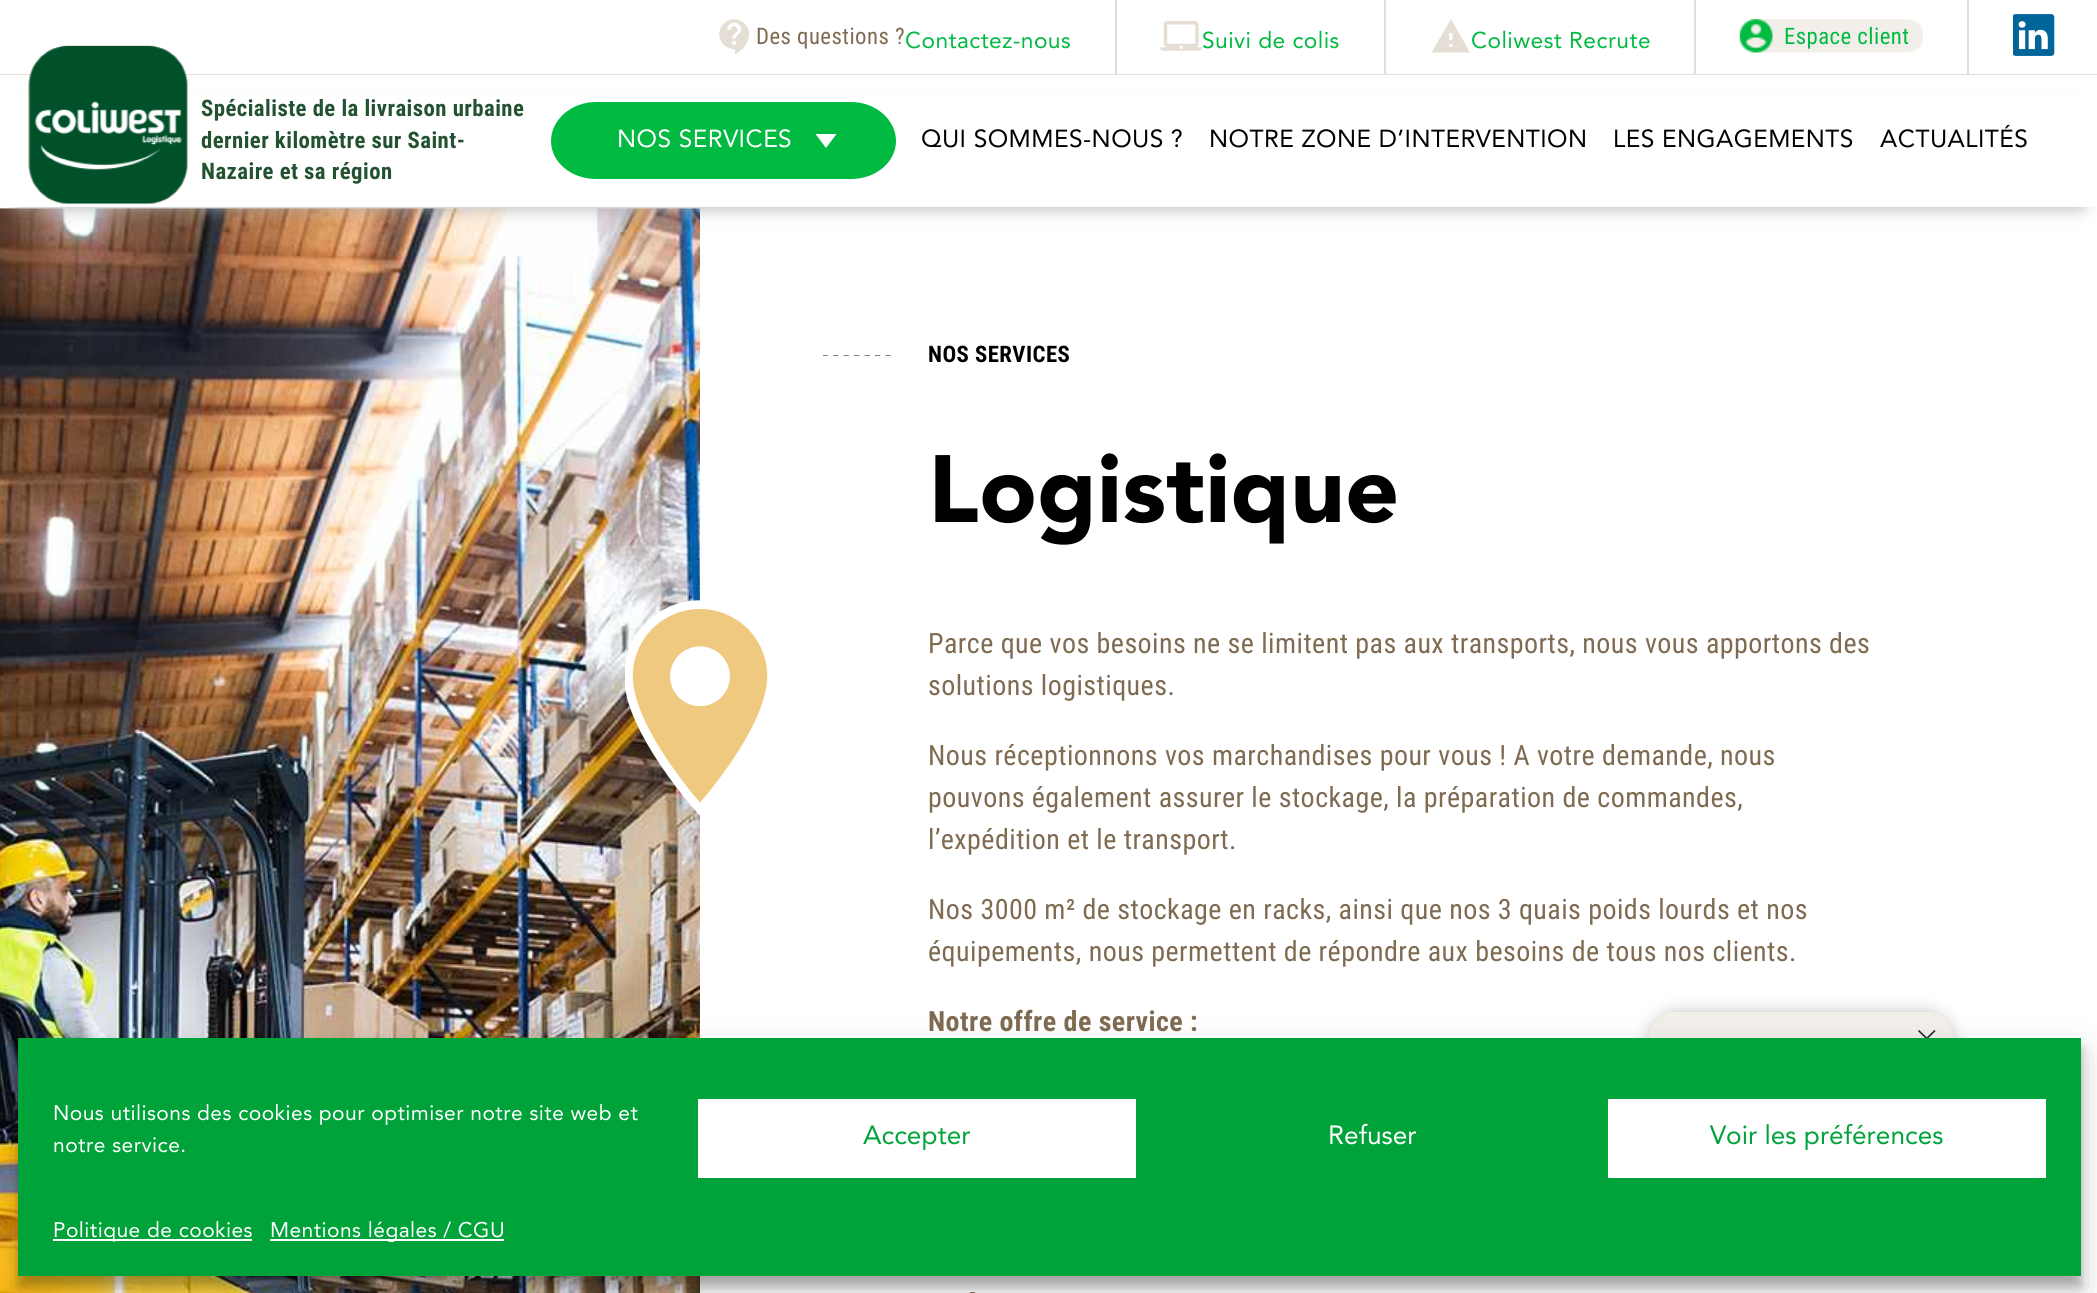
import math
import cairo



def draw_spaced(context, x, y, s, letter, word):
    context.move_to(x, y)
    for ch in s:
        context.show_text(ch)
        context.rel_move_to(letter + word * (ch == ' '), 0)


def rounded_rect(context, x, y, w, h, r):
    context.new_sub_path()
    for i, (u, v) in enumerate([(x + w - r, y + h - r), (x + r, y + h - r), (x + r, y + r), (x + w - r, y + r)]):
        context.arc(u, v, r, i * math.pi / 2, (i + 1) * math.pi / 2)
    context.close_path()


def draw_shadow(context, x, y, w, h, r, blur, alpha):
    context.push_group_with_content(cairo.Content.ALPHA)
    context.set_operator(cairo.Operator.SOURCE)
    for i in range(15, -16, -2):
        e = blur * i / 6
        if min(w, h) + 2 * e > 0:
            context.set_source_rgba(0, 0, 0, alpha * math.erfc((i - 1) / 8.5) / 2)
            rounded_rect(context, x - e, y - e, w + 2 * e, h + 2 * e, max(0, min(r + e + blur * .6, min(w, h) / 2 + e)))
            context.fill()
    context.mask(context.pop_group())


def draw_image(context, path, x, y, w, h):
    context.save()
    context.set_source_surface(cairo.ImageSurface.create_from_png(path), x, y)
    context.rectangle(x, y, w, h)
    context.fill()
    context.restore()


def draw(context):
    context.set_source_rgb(1, 1, 1)
    context.paint()
    context.set_source_rgb(229 / 255, 222 / 255, 213 / 255)
    context.rectangle(0, 74, 2097, 1)
    context.fill()
    context.rectangle(1115, 0, 2, 74)
    context.fill()
    draw_image(context, "images/1.png", 719, 19, 30, 35)
    context.rectangle(1384, 0, 2, 74)
    context.fill()
    draw_image(context, "images/2.png", 1160, 21, 42, 30)
    context.rectangle(1694, 0, 2, 74)
    context.fill()
    context.new_path()
    context.move_to(1431.5, 52.5)
    context.line_to(1470, 52.5)
    context.line_to(1451, 19)
    context.close_path()
    context.move_to(1452.5, 47)
    context.line_to(1449, 47)
    context.line_to(1449, 44)
    context.line_to(1452.5, 44)
    context.close_path()
    context.move_to(1452.5, 40)
    context.line_to(1449, 40)
    context.line_to(1449, 33)
    context.line_to(1452.5, 33)
    context.close_path()
    context.fill()
    context.rectangle(1967, 0, 2, 74)
    context.fill()
    draw_image(context, "images/3.png", 1739, 19, 184, 34)
    draw_image(context, "images/4.png", 2013, 14, 42, 42)
    draw_image(context, "images/6.png", 0, 208, 700, 1085)
    context.set_source_rgb(173 / 255, 173 / 255, 173 / 255)
    draw_shadow(context, 18, 110, 2063, 97, 0, 9, 1)
    context.set_source_rgb(1, 1, 1)
    context.rectangle(1, 93, 2096, 114)
    context.fill()
    draw_image(context, "images/5.png", 28, 45, 161, 159)
    context.set_source_rgb(0, 186 / 255, 65 / 255)
    context.new_path()
    context.move_to(596, 102)
    context.line_to(851, 102)
    context.curve_to(876, 102, 896, 120, 896, 141)
    context.curve_to(896, 162, 876, 179, 851, 179)
    context.line_to(596, 179)
    context.curve_to(571, 179, 551, 162, 551, 141)
    context.curve_to(551, 120, 571, 102, 596, 102)
    context.close_path()
    context.fill()
    context.set_source_rgb(1, 1, 1)
    context.new_path()
    context.move_to(826, 148)
    context.line_to(815.5, 134)
    context.line_to(836.5, 134)
    context.close_path()
    context.fill()
    context.save()
    context.rectangle(823, 355, 70, 2)
    context.clip()
    context.new_path()
    context.move_to(822.5, 355)
    context.line_to(892.5, 355)
    context.set_source_rgb(112 / 255, 112 / 255, 112 / 255)
    context.set_line_width(1.8)
    context.set_dash([5.25, 5.25])
    context.stroke()
    context.restore()
    context.set_source_rgb(126 / 255, 107 / 255, 81 / 255)
    rounded_rect(context, 968, 1292, 9, 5, 4)
    context.fill()
    draw_image(context, "images/7.png", 625, 600, 143, 216)
    context.set_source_rgb(173 / 255, 173 / 255, 173 / 255)
    draw_shadow(context, 1652, 1015, 298, 65, 23, 9, 1)
    context.set_source_rgb(242 / 255, 239 / 255, 234 / 255)
    context.new_path()
    context.move_to(1675, 1012)
    context.line_to(1927, 1012)
    context.curve_to(1941.5, 1012, 1953, 1023.5, 1953, 1038)
    context.line_to(1953, 1083)
    context.line_to(1675, 1083)
    context.curve_to(1660.5, 1083, 1649, 1071.5, 1649, 1057)
    context.line_to(1649, 1038)
    context.curve_to(1649, 1023.5, 1660.5, 1012, 1675, 1012)
    context.close_path()
    context.fill()
    context.new_path()
    context.move_to(1918.5, 1030.5)
    context.line_to(1934.5, 1046)
    context.move_to(1935, 1030.5)
    context.line_to(1918.5, 1046.5)
    context.set_source_rgb(43 / 255, 43 / 255, 43 / 255)
    context.set_line_width(1.7)
    context.stroke()
    context.set_source_rgb(0, 0, 0)
    draw_shadow(context, 18, 1048, 2063, 238, 0, 5, 0.23)
    draw_shadow(context, 18, 1055, 2063, 238, 0, 17.5, 0.19)
    context.set_source_rgb(0, 163 / 255, 58 / 255)
    context.rectangle(18, 1038, 2063, 238)
    context.fill()
    context.set_source_rgb(1, 1, 1)
    context.rectangle(698, 1099, 438, 79)
    context.fill()
    context.rectangle(1608, 1099, 438, 79)
    context.fill()
    context.rectangle(53, 1239, 199, 2)
    context.fill()
    context.rectangle(270, 1239, 234, 2)
    context.fill()
    context.select_font_face("Roboto Condensed")
    context.set_font_size(22.75)
    context.set_source_rgb(126 / 255, 107 / 255, 81 / 255)
    draw_spaced(context, 756, 44, "Des questions ?", 0.45, 0)
    context.select_font_face("Avenir")
    context.set_source_rgb(0, 186 / 255, 65 / 255)
    draw_spaced(context, 905, 48, "Contactez-nous", 0.45, 0)
    draw_spaced(context, 1202, 48, "Suivi de colis", 0.45, 0)
    draw_spaced(context, 1471, 48, "Coliwest Recrute", 0.45, 0)
    context.select_font_face("Roboto Condensed")
    draw_spaced(context, 1784, 44, "Espace client", 0.45, 0)
    context.select_font_face("Roboto Condensed", cairo.FontSlant.NORMAL, cairo.FontWeight.BOLD)
    context.set_source_rgb(34 / 255, 82 / 255, 47 / 255)
    draw_spaced(context, 201, 116, "Spécialiste de la livraison urbaine", 0.45, 0)
    draw_spaced(context, 201, 148, "dernier kilomètre sur Saint-", 0.45, 0)
    draw_spaced(context, 201, 179, "Nazaire et sa région", 0.45, 0)
    context.select_font_face("Avenir")
    context.set_font_size(24.5)
    context.set_source_rgb(1, 1, 1)
    draw_spaced(context, 617, 147, "NOS SERVICES", 0.45, 0)
    context.set_source_rgb(0, 0, 0)
    draw_spaced(context, 921, 147, "QUI SOMMES-NOUS ?", 0.45, 0)
    draw_spaced(context, 1209, 147, "NOTRE ZONE D’INTERVENTION", 0.45, 0)
    draw_spaced(context, 1613, 147, "LES ENGAGEMENTS", 0.45, 0)
    draw_spaced(context, 1880, 147, "ACTUALITÉS", 0.45, 0)
    context.select_font_face("Roboto Condensed", cairo.FontSlant.NORMAL, cairo.FontWeight.BOLD)
    context.set_font_size(22.75)
    draw_spaced(context, 928, 362, "NOS SERVICES", 0.45, 0)
    context.select_font_face("Avenir Black")
    context.set_font_size(94.5)
    draw_spaced(context, 928, 522, "Logistique", 0.45, 0)
    context.select_font_face("Roboto Condensed")
    context.set_font_size(28)
    context.set_source_rgb(126 / 255, 107 / 255, 81 / 255)
    draw_spaced(context, 928, 653, "Parce que vos besoins ne se limitent pas aux transports, nous vous apportons des", 0.45, 0)
    draw_spaced(context, 928, 695, "solutions logistiques.", 0.45, 0)
    draw_spaced(context, 928, 765, "Nous réceptionnons vos marchandises pour vous ! A votre demande, nous", 0.45, 0)
    draw_spaced(context, 928, 807, "pouvons également assurer le stockage, la préparation de commandes,", 0.45, 0)
    draw_spaced(context, 928, 849, "l’expédition et le transport.", 0.45, 0)
    draw_spaced(context, 928, 919, "Nos 3000 m² de stockage en racks, ainsi que nos 3 quais poids lourds et nos", 0.45, 0)
    draw_spaced(context, 928, 961, "équipements, nous permettent de répondre aux besoins de tous nos clients.", 0.45, 0)
    context.select_font_face("Roboto Condensed", cairo.FontSlant.NORMAL, cairo.FontWeight.BOLD)
    draw_spaced(context, 928, 1031, "Notre offre de service :", 0.45, 0)
    context.select_font_face("Avenir")
    context.set_font_size(21)
    context.set_source_rgb(1, 1, 1)
    draw_spaced(context, 53, 1120, "Nous utilisons des cookies pour optimiser notre site web et", 0.45, 0)
    draw_spaced(context, 53, 1152, "notre service.", 0.45, 0)
    context.set_font_size(26.25)
    context.set_source_rgb(0, 163 / 255, 58 / 255)
    context.move_to(863, 1144)
    context.show_text("Accepter")
    context.set_source_rgb(1, 1, 1)
    context.move_to(1328, 1144)
    context.show_text("Refuser")
    context.set_source_rgb(0, 163 / 255, 58 / 255)
    context.move_to(1710, 1144)
    context.show_text("Voir les préférences")
    context.set_font_size(21)
    context.set_source_rgb(1, 1, 1)
    draw_spaced(context, 53, 1237, "Politique de cookies", 0.45, 0)
    draw_spaced(context, 270, 1237, "Mentions légales / CGU", 0.45, 0)


surface = cairo.ImageSurface(cairo.Format.RGB24, 2097, 1293)
context = cairo.Context(surface)
options = cairo.FontOptions()
options.set_hint_metrics(cairo.HintMetrics.OFF)
options.set_hint_style(cairo.HintStyle.NONE)
context.set_font_options(options)
context.set_miter_limit(4)
draw(context)
surface.write_to_png("out.png")
